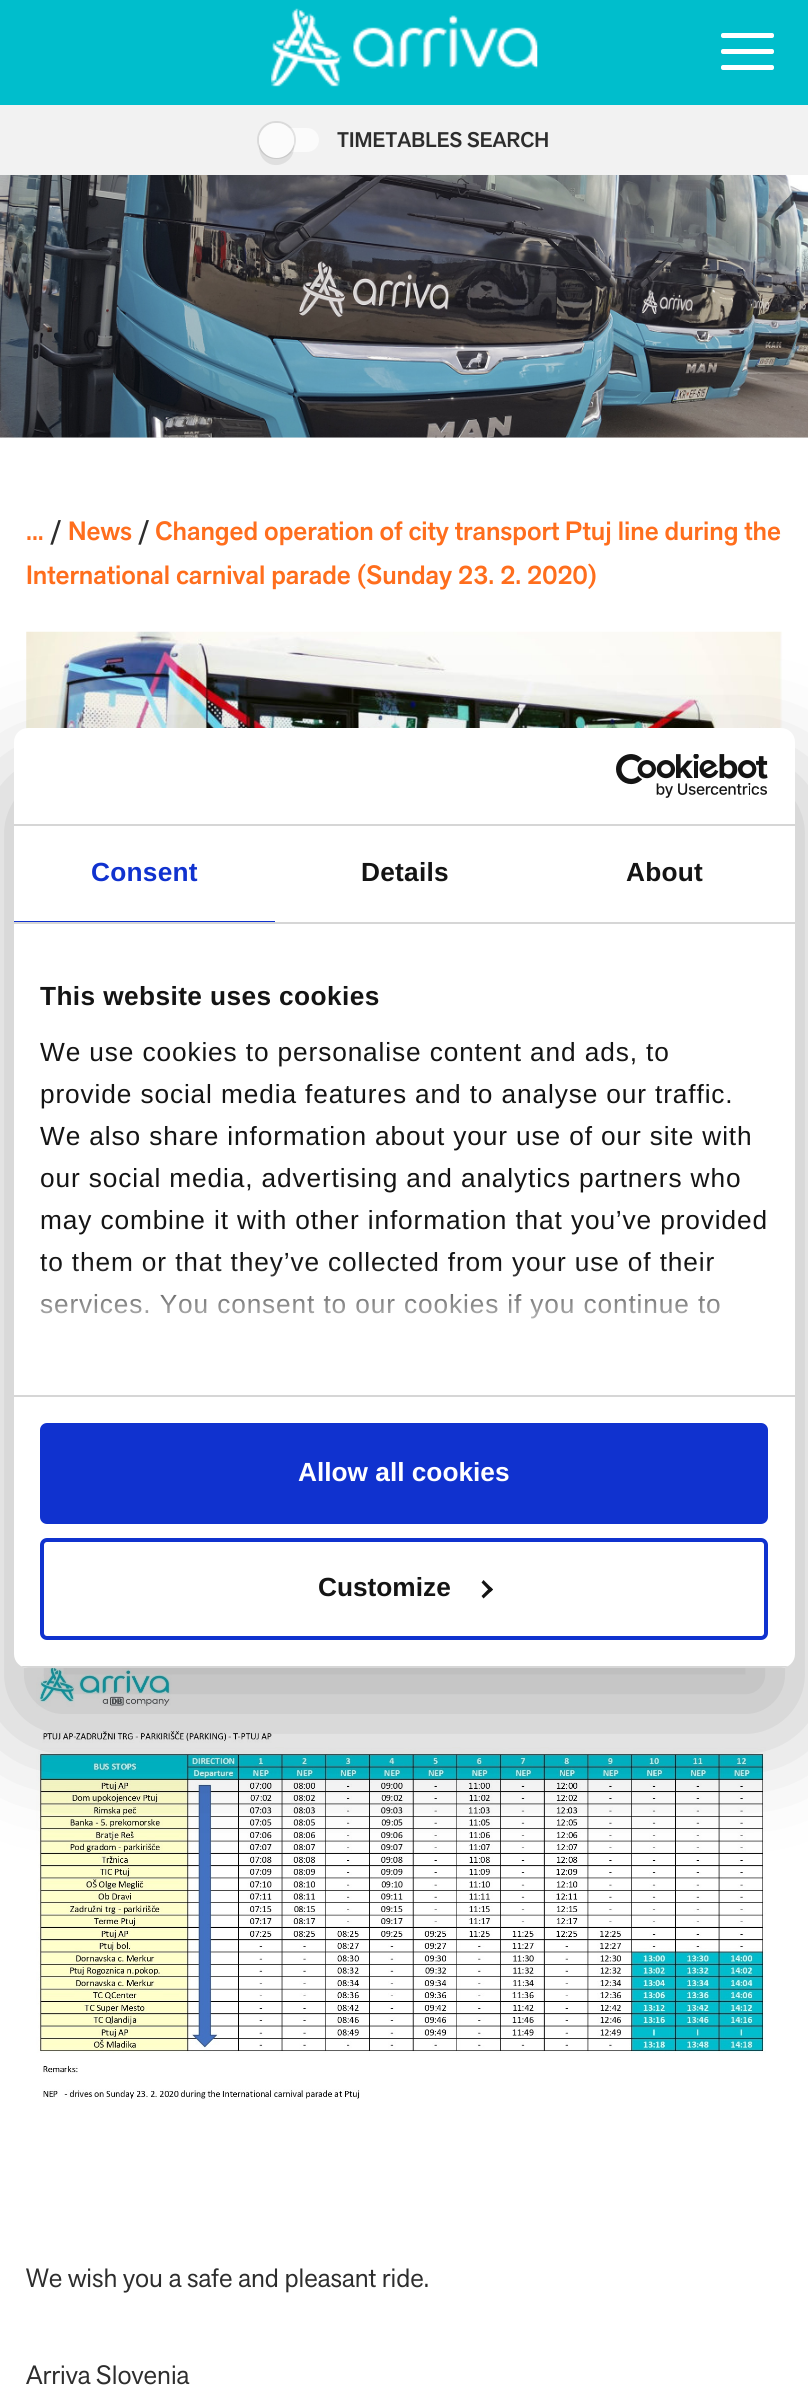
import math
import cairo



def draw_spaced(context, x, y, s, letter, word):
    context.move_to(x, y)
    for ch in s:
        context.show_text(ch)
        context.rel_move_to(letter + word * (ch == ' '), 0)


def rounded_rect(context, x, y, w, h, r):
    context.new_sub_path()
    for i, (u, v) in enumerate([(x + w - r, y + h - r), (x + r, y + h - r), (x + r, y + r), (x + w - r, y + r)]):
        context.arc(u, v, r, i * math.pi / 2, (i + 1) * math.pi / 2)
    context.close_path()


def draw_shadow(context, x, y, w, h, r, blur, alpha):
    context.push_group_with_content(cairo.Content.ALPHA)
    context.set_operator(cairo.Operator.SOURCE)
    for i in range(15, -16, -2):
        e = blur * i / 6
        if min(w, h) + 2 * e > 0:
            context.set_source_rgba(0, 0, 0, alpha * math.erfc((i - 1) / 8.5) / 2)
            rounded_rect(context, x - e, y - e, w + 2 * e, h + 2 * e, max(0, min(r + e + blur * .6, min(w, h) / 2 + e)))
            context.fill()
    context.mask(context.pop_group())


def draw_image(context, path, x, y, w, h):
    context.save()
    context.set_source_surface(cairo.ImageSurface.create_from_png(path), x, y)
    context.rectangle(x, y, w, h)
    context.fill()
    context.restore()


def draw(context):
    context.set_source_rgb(1, 1, 1)
    context.paint()
    context.set_source_rgb(0, 190 / 255, 204 / 255)
    context.rectangle(0, 0, 808, 105)
    context.fill()
    draw_image(context, "images/1.png", 271, 8, 267, 79)
    context.set_source_rgb(1, 1, 1)
    rounded_rect(context, 721, 33, 53, 5, 2)
    context.fill()
    rounded_rect(context, 721, 49, 53, 5, 2)
    context.fill()
    rounded_rect(context, 721, 65, 53, 5, 2)
    context.fill()
    context.set_source_rgb(242 / 255, 242 / 255, 242 / 255)
    context.rectangle(0, 105, 808, 70)
    context.fill()
    context.set_source_rgb(251 / 255, 251 / 255, 251 / 255)
    rounded_rect(context, 259, 128, 60, 24, 12)
    context.fill()
    context.set_source_rgba(0, 0, 0, 0.08)
    context.new_path()
    context.move_to(259.5, 144)
    context.curve_to(258.5, 148.5, 259.5, 153.5, 262, 157.5)
    context.curve_to(273, 173.5, 297.5, 162, 293.5, 144)
    context.curve_to(289.5, 162, 263.5, 162, 259.5, 144)
    context.close_path()
    context.fill()
    rounded_rect(context, 258, 122, 37, 36, 18)
    context.set_source_rgba(0, 0, 0, 0.1)
    context.stroke()
    context.set_source_rgb(251 / 255, 251 / 255, 251 / 255)
    context.arc(276.5, 140.5, 17.5, 0, 2 * math.pi)
    context.fill()
    context.set_source_rgb(242 / 255, 242 / 255, 242 / 255)
    context.rectangle(0, 437, 808, 1)
    context.fill()
    draw_image(context, "images/2.png", 0, 175, 808, 263)
    draw_image(context, "images/3.png", 26, 631, 757, 98)
    draw_image(context, "images/4.png", 36, 1668, 730, 431)
    context.set_source_rgb(0, 0, 0)
    draw_shadow(context, 14, 784, 781, 940, 14, 59.5, 0.3)
    context.set_source_rgb(1, 1, 1)
    rounded_rect(context, 14, 728, 781, 940, 14)
    context.fill()
    context.set_source_rgb(214 / 255, 214 / 255, 214 / 255)
    context.rectangle(14, 824, 781, 2)
    context.fill()
    draw_image(context, "images/5.png", 616, 754, 152, 44)
    context.rectangle(14, 922, 781, 2)
    context.fill()
    context.set_source_rgb(16 / 255, 50 / 255, 207 / 255)
    context.rectangle(14, 921, 261, 1)
    context.fill()
    context.set_source_rgb(214 / 255, 214 / 255, 214 / 255)
    context.rectangle(14, 1395, 781, 2)
    context.fill()
    context.save()
    rounded_rect(context, 14, 728, 781, 940, 14)
    context.clip()
    context.rectangle(14, 1666, 781, 2)
    context.fill()
    context.restore()
    context.set_source_rgb(16 / 255, 50 / 255, 207 / 255)
    rounded_rect(context, 42, 1425, 724, 97, 5)
    context.fill_preserve()
    context.set_line_width(4)
    context.stroke()
    rounded_rect(context, 42, 1540, 724, 98, 5)
    context.stroke()
    context.set_source_rgb(20 / 255, 20 / 255, 20 / 255)
    context.new_path()
    context.move_to(483.5, 1580)
    context.line_to(493, 1589.5)
    context.line_to(490.5, 1592)
    context.line_to(481.5, 1582.5)
    context.close_path()
    context.fill()
    context.new_path()
    context.move_to(490.5, 1587)
    context.line_to(493, 1589.5)
    context.line_to(483.5, 1598.5)
    context.line_to(481.5, 1596)
    context.close_path()
    context.fill()
    context.select_font_face("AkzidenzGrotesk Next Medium")
    context.set_font_size(21)
    context.set_source_rgb(45 / 255, 45 / 255, 45 / 255)
    context.move_to(337, 147)
    context.show_text("TIMETABLES SEARCH")
    context.set_font_size(26.25)
    context.set_source_rgb(1, 110 / 255, 29 / 255)
    context.move_to(26, 540)
    context.show_text("...")
    context.set_source_rgb(45 / 255, 45 / 255, 45 / 255)
    context.move_to(50, 540)
    context.show_text("/")
    context.set_source_rgb(1, 110 / 255, 29 / 255)
    context.move_to(68, 540)
    context.show_text("News")
    context.set_source_rgb(45 / 255, 45 / 255, 45 / 255)
    context.move_to(138, 540)
    context.show_text("/")
    context.set_source_rgb(1, 110 / 255, 29 / 255)
    context.move_to(155, 540)
    context.show_text("Changed operation of city transport Ptuj line during the")
    context.move_to(26, 584)
    context.show_text("International carnival parade (Sunday 23. 2. 2020)")
    context.select_font_face("AkzidenzGrotesk Next")
    context.set_source_rgb(45 / 255, 45 / 255, 45 / 255)
    context.move_to(26, 2287)
    context.show_text("We wish you a safe and pleasant ride.")
    context.move_to(26, 2384)
    context.show_text("Arriva Slovenia")
    context.select_font_face("Liberation Sans", cairo.FontSlant.NORMAL, cairo.FontWeight.BOLD)
    context.set_source_rgb(16 / 255, 50 / 255, 207 / 255)
    draw_spaced(context, 91, 881, "Consent", 0.25, 0)
    context.set_source_rgb(20 / 255, 20 / 255, 20 / 255)
    draw_spaced(context, 361, 881, "Details", 0.25, 0)
    draw_spaced(context, 626, 881, "About", 0.25, 0)
    draw_spaced(context, 40, 1005, "This website uses cookies", 0.4, 0)
    context.select_font_face("Liberation Sans")
    draw_spaced(context, 40, 1061, "We use cookies to personalise content and ads, to", 0.88, 0)
    draw_spaced(context, 40, 1103, "provide social media features and to analyse our traffic.", 0.88, 0)
    draw_spaced(context, 40, 1145, "We also share information about your use of our site with", 0.88, 0)
    draw_spaced(context, 40, 1187, "our social media, advertising and analytics partners who", 0.88, 0)
    draw_spaced(context, 40, 1229, "may combine it with other information that you’ve provided", 0.88, 0)
    draw_spaced(context, 40, 1271, "to them or that they’ve collected from your use of their", 0.88, 0)
    draw_spaced(context, 40, 1313, "services. You consent to our cookies if you continue to", 0.88, 0)
    gradient = cairo.LinearGradient(393, 1394, 393, 1263)
    gradient.add_color_stop_rgba(0, 1, 1, 1, 1)
    gradient.add_color_stop_rgba(0.5, 1, 1, 1, 0.8)
    gradient.add_color_stop_rgba(1, 1, 1, 1, 0)
    context.set_source(gradient)
    context.rectangle(41, 1265, 679, 54)
    context.fill()
    context.select_font_face("Liberation Sans", cairo.FontSlant.NORMAL, cairo.FontWeight.BOLD)
    context.set_source_rgb(1, 1, 1)
    context.move_to(298, 1481)
    context.show_text("Allow all cookies")
    context.set_source_rgb(20 / 255, 20 / 255, 20 / 255)
    context.move_to(318, 1596)
    context.show_text("Customize")


surface = cairo.ImageSurface(cairo.Format.RGB24, 808, 2391)
context = cairo.Context(surface)
options = cairo.FontOptions()
options.set_hint_metrics(cairo.HintMetrics.OFF)
options.set_hint_style(cairo.HintStyle.NONE)
context.set_font_options(options)
context.set_miter_limit(4)
draw(context)
surface.write_to_png("out.png")
